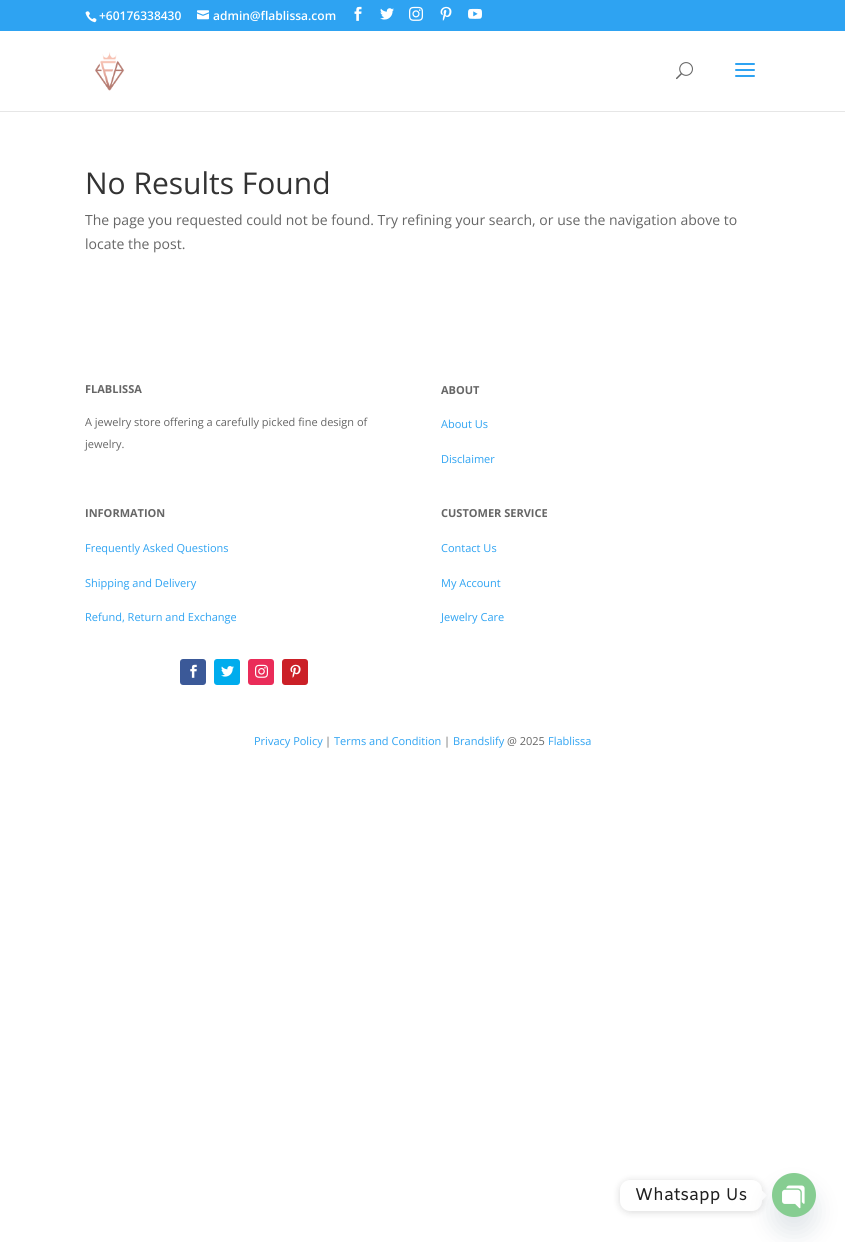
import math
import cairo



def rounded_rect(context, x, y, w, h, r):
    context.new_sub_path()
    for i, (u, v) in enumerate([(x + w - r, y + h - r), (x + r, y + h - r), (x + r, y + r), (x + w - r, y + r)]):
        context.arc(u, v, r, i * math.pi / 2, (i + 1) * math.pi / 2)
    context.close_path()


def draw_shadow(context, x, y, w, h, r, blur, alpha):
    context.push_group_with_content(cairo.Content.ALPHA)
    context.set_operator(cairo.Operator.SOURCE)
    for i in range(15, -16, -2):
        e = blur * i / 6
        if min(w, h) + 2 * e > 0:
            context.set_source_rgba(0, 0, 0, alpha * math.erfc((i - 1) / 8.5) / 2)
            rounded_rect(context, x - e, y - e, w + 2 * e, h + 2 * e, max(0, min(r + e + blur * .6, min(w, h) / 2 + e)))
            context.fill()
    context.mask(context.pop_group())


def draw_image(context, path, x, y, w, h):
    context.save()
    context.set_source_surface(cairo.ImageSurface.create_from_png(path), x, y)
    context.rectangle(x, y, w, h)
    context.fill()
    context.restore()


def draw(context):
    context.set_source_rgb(1, 1, 1)
    context.paint()
    context.set_source_rgb(46 / 255, 163 / 255, 242 / 255)
    context.rectangle(0, 0, 845, 31)
    context.fill()
    draw_image(context, "images/1.png", 85, 11, 12, 12)
    draw_image(context, "images/2.png", 197, 10, 12, 10)
    draw_image(context, "images/3.png", 354, 6, 8, 15)
    draw_image(context, "images/4.png", 380, 8, 14, 12)
    draw_image(context, "images/5.png", 409, 6, 14, 15)
    draw_image(context, "images/6.png", 440, 6, 12, 15)
    draw_image(context, "images/7.png", 468, 8, 14, 11)
    context.set_source_rgb(230 / 255, 230 / 255, 230 / 255)
    context.rectangle(0, 111, 845, 1)
    context.fill()
    draw_image(context, "images/8.png", 95, 52, 30, 39)
    draw_image(context, "images/9.png", 676, 62, 17, 18)
    draw_image(context, "images/10.png", 735, 63, 20, 14)
    context.set_source_rgb(59 / 255, 89 / 255, 152 / 255)
    rounded_rect(context, 180, 659, 26, 26, 3)
    context.fill()
    draw_image(context, "images/11.png", 190, 664, 7, 14)
    context.set_source_rgb(0, 172 / 255, 237 / 255)
    rounded_rect(context, 214, 659, 26, 26, 3)
    context.fill()
    draw_image(context, "images/12.png", 221, 666, 13, 11)
    context.set_source_rgb(234 / 255, 44 / 255, 89 / 255)
    rounded_rect(context, 248, 659, 26, 26, 3)
    context.fill()
    draw_image(context, "images/13.png", 255, 664, 13, 14)
    context.set_source_rgb(203 / 255, 32 / 255, 39 / 255)
    rounded_rect(context, 282, 659, 26, 26, 3)
    context.fill()
    draw_image(context, "images/14.png", 290, 664, 11, 14)
    context.set_source_rgb(0, 0, 0)
    draw_shadow(context, 620, 1181, 142, 31, 10, 4, 0.15)
    context.set_source_rgb(1, 1, 1)
    rounded_rect(context, 620, 1180, 142, 31, 10)
    context.fill()
    context.new_path()
    context.move_to(762, 1200.5)
    context.line_to(762, 1190.5)
    context.line_to(767, 1195.5)
    context.close_path()
    context.fill()
    context.set_source_rgb(73 / 255, 104 / 255, 126 / 255)
    draw_shadow(context, 772, 1189, 44, 44, 22, 12, 0.16)
    draw_image(context, "images/15.png", 772, 1173, 44, 44)
    context.select_font_face("Open Sans SemiBold")
    context.set_font_size(12)
    context.set_source_rgb(1, 1, 1)
    context.move_to(99, 20)
    context.show_text("+60176338430")
    context.move_to(213, 20)
    context.show_text("admin@flablissa.com")
    context.select_font_face("Open Sans")
    context.set_font_size(30)
    context.set_source_rgb(51 / 255, 51 / 255, 51 / 255)
    context.move_to(85, 194)
    context.show_text("No Results Found")
    context.set_font_size(14)
    context.set_source_rgb(102 / 255, 102 / 255, 102 / 255)
    context.move_to(85, 225)
    context.show_text("The page you requested could not be found. Try refining your search, or use the navigation above to")
    context.move_to(85, 249)
    context.show_text("locate the post.")
    context.select_font_face("Open Sans", cairo.FontSlant.NORMAL, cairo.FontWeight.BOLD)
    context.set_font_size(11)
    context.move_to(85, 393)
    context.show_text("FLABLISSA")
    context.select_font_face("Open Sans")
    context.move_to(85, 426)
    context.show_text("A jewelry store offering a carefully picked fine design of")
    context.move_to(85, 448)
    context.show_text("jewelry.")
    context.select_font_face("Open Sans", cairo.FontSlant.NORMAL, cairo.FontWeight.BOLD)
    context.move_to(441, 394)
    context.show_text("ABOUT")
    context.select_font_face("Open Sans")
    context.set_source_rgb(46 / 255, 163 / 255, 242 / 255)
    context.move_to(441, 428)
    context.show_text("About Us")
    context.move_to(441, 463)
    context.show_text("Disclaimer")
    context.select_font_face("Open Sans", cairo.FontSlant.NORMAL, cairo.FontWeight.BOLD)
    context.set_source_rgb(102 / 255, 102 / 255, 102 / 255)
    context.move_to(85, 517)
    context.show_text("INFORMATION")
    context.select_font_face("Open Sans")
    context.set_source_rgb(46 / 255, 163 / 255, 242 / 255)
    context.move_to(85, 552)
    context.show_text("Frequently Asked Questions")
    context.move_to(85, 587)
    context.show_text("Shipping and Delivery")
    context.move_to(85, 621)
    context.show_text("Refund, Return and Exchange")
    context.select_font_face("Open Sans", cairo.FontSlant.NORMAL, cairo.FontWeight.BOLD)
    context.set_source_rgb(102 / 255, 102 / 255, 102 / 255)
    context.move_to(441, 517)
    context.show_text("CUSTOMER SERVICE")
    context.select_font_face("Open Sans")
    context.set_source_rgb(46 / 255, 163 / 255, 242 / 255)
    context.move_to(441, 552)
    context.show_text("Contact Us")
    context.move_to(441, 587)
    context.show_text("My Account")
    context.move_to(441, 621)
    context.show_text("Jewelry Care")
    context.move_to(254, 745)
    context.show_text("Privacy Policy")
    context.set_source_rgb(102 / 255, 102 / 255, 102 / 255)
    context.move_to(325, 745)
    context.show_text("|")
    context.set_source_rgb(46 / 255, 163 / 255, 242 / 255)
    context.move_to(334, 745)
    context.show_text("Terms and Condition")
    context.set_source_rgb(102 / 255, 102 / 255, 102 / 255)
    context.move_to(444, 745)
    context.show_text("|")
    context.set_source_rgb(46 / 255, 163 / 255, 242 / 255)
    context.move_to(453, 745)
    context.show_text("Brandslify")
    context.set_source_rgb(102 / 255, 102 / 255, 102 / 255)
    context.move_to(507, 745)
    context.show_text("@ 2025")
    context.set_source_rgb(46 / 255, 163 / 255, 242 / 255)
    context.move_to(548, 745)
    context.show_text("Flablissa")
    context.select_font_face("Amiko")
    context.set_font_size(17)
    context.set_source_rgb(32 / 255, 32 / 255, 32 / 255)
    context.move_to(635, 1200)
    context.show_text("Whatsapp Us")


surface = cairo.ImageSurface(cairo.Format.RGB24, 845, 1242)
context = cairo.Context(surface)
options = cairo.FontOptions()
options.set_hint_metrics(cairo.HintMetrics.OFF)
options.set_hint_style(cairo.HintStyle.NONE)
context.set_font_options(options)
context.set_miter_limit(4)
draw(context)
surface.write_to_png("out.png")
